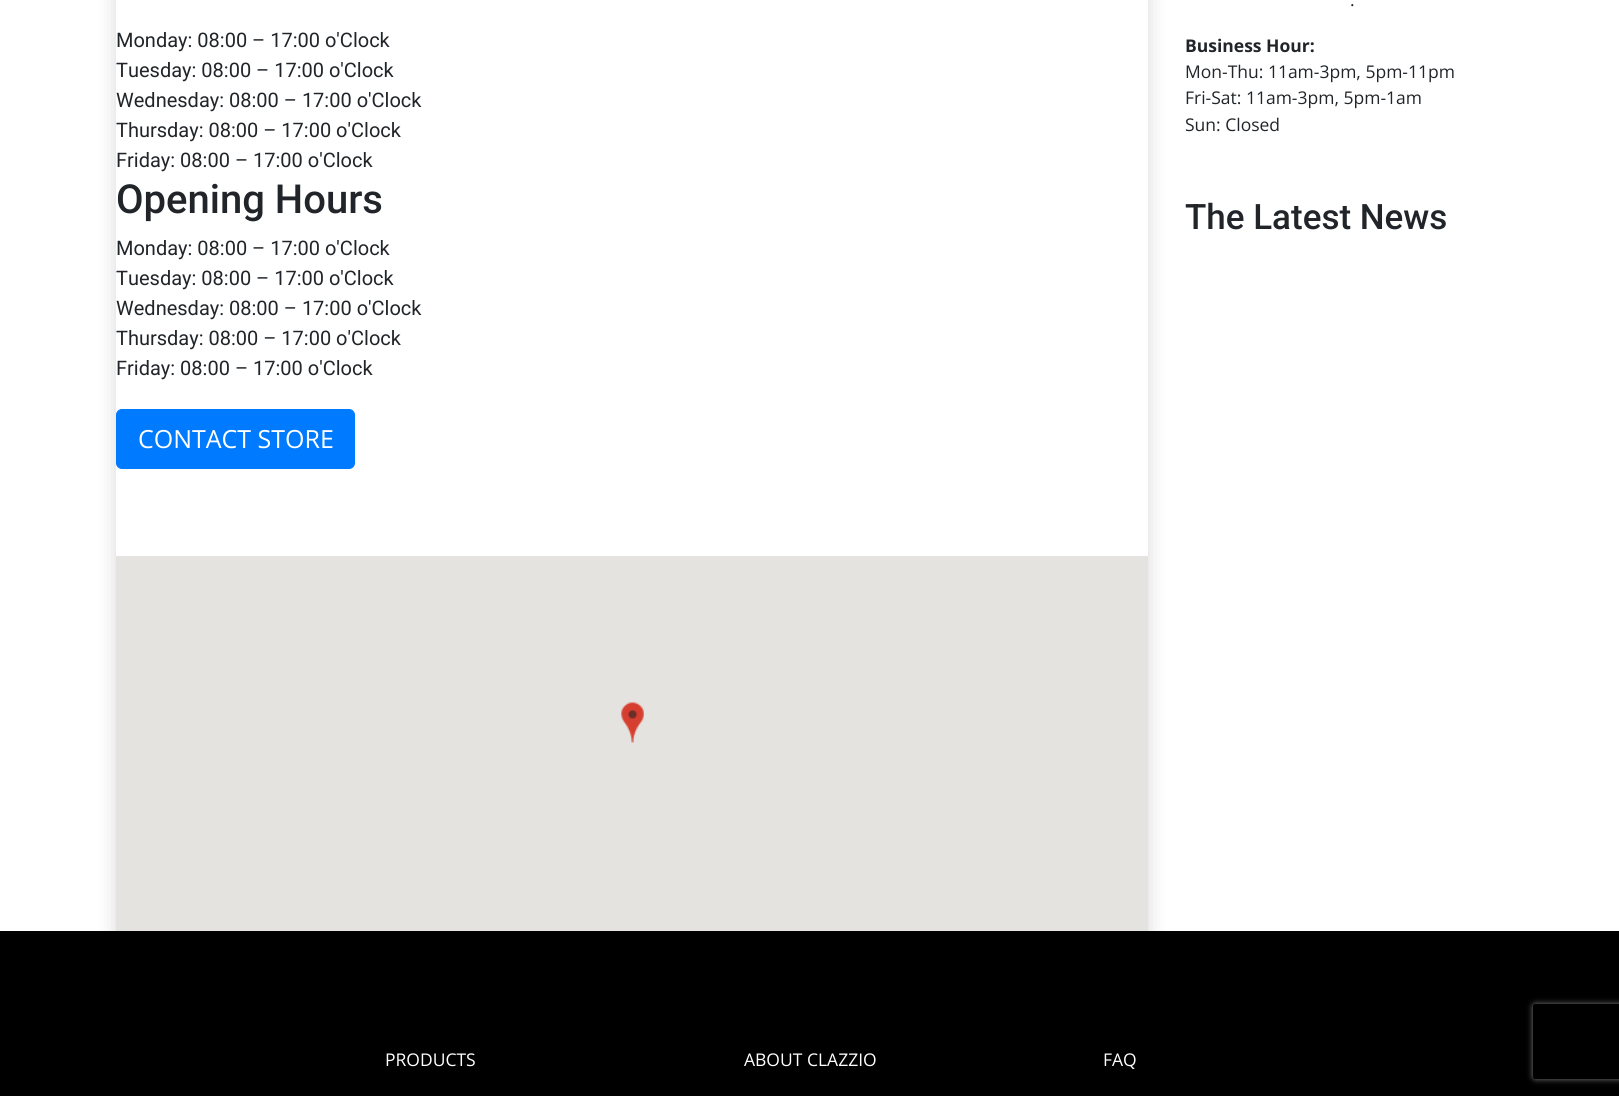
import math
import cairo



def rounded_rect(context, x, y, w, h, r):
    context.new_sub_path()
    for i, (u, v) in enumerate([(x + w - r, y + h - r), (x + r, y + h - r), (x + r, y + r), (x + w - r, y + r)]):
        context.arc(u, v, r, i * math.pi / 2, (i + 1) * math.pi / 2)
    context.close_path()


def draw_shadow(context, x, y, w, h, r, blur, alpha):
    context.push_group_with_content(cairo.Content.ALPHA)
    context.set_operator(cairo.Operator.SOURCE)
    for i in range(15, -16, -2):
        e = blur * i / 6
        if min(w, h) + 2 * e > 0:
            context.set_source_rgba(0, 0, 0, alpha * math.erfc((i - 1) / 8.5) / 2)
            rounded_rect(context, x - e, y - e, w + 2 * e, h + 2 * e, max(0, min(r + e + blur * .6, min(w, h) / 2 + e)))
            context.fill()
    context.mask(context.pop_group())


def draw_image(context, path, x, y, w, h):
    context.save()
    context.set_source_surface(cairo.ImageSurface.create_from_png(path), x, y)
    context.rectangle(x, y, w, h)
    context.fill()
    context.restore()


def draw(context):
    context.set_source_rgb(1, 1, 1)
    context.paint()
    context.set_source_rgb(0, 0, 0)
    context.rectangle(0, 931, 1619, 165)
    context.fill()
    context.save()
    context.set_fill_rule(cairo.FillRule.EVEN_ODD)
    context.new_path()
    context.move_to(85, 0)
    context.line_to(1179, 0)
    context.line_to(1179, 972)
    context.line_to(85, 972)
    context.close_path()
    context.move_to(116, -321)
    context.line_to(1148, -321)
    context.line_to(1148, 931)
    context.line_to(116, 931)
    context.close_path()
    context.clip()
    context.set_source_rgb(0, 0, 0)
    draw_shadow(context, 116, -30, 1032, 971, 0, 10, 0.15)
    context.restore()
    context.set_source_rgb(0, 123 / 255, 1)
    rounded_rect(context, 116.5, 409.5, 238, 59, 5.5)
    context.fill_preserve()
    context.set_line_width(1)
    context.stroke()
    context.set_source_rgb(229 / 255, 227 / 255, 223 / 255)
    context.rectangle(116, 556, 1032, 375)
    context.fill()
    draw_image(context, "images/1.png", 621, 702, 23, 41)
    context.save()
    context.set_fill_rule(cairo.FillRule.EVEN_ODD)
    context.new_path()
    context.move_to(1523, 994)
    context.line_to(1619, 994)
    context.line_to(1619, 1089)
    context.line_to(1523, 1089)
    context.close_path()
    context.move_to(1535.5, 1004)
    context.line_to(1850.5, 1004)
    context.curve_to(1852, 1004, 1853, 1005, 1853, 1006.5)
    context.line_to(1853, 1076.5)
    context.curve_to(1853, 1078, 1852, 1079, 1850.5, 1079)
    context.line_to(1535.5, 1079)
    context.curve_to(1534, 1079, 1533, 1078, 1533, 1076.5)
    context.line_to(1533, 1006.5)
    context.curve_to(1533, 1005, 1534, 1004, 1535.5, 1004)
    context.close_path()
    context.clip()
    context.set_source_rgb(128 / 255, 128 / 255, 128 / 255)
    draw_shadow(context, 1533, 1004, 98, 75, 2.5, 3, 1)
    context.restore()
    context.select_font_face("Roboto")
    context.set_font_size(20)
    context.set_source_rgb(33 / 255, 37 / 255, 41 / 255)
    context.move_to(116, 47)
    context.show_text("Monday: 08:00 – 17:00 o'Clock")
    context.move_to(116, 77)
    context.show_text("Tuesday: 08:00 – 17:00 o'Clock")
    context.move_to(116, 107)
    context.show_text("Wednesday: 08:00 – 17:00 o'Clock")
    context.move_to(116, 137)
    context.show_text("Thursday: 08:00 – 17:00 o'Clock")
    context.move_to(116, 167)
    context.show_text("Friday: 08:00 – 17:00 o'Clock")
    context.select_font_face("Roboto Medium")
    context.set_font_size(40)
    context.move_to(116, 213)
    context.show_text("Opening Hours")
    context.select_font_face("Roboto")
    context.set_font_size(20)
    context.move_to(116, 255)
    context.show_text("Monday: 08:00 – 17:00 o'Clock")
    context.move_to(116, 285)
    context.show_text("Tuesday: 08:00 – 17:00 o'Clock")
    context.move_to(116, 315)
    context.show_text("Wednesday: 08:00 – 17:00 o'Clock")
    context.move_to(116, 345)
    context.show_text("Thursday: 08:00 – 17:00 o'Clock")
    context.move_to(116, 375)
    context.show_text("Friday: 08:00 – 17:00 o'Clock")
    context.select_font_face("Open Sans")
    context.set_font_size(25)
    context.set_source_rgb(1, 1, 1)
    context.move_to(138, 448)
    context.show_text("CONTACT STORE")
    context.set_font_size(17.5)
    context.set_source_rgb(33 / 255, 37 / 255, 41 / 255)
    context.move_to(1350, 6)
    context.show_text(".")
    context.select_font_face("Open Sans", cairo.FontSlant.NORMAL, cairo.FontWeight.BOLD)
    context.move_to(1185, 52)
    context.show_text("Business Hour:")
    context.select_font_face("Open Sans")
    context.move_to(1185, 78)
    context.show_text("Mon-Thu: 11am-3pm, 5pm-11pm")
    context.move_to(1185, 104)
    context.show_text("Fri-Sat: 11am-3pm, 5pm-1am")
    context.move_to(1185, 131)
    context.show_text("Sun: Closed")
    context.select_font_face("Roboto Medium")
    context.set_font_size(35)
    context.move_to(1185, 229)
    context.show_text("The Latest News")
    context.select_font_face("Open Sans")
    context.set_font_size(17.5)
    context.set_source_rgb(1, 1, 1)
    context.move_to(385, 1066)
    context.show_text("PRODUCTS")
    context.move_to(744, 1066)
    context.show_text("ABOUT CLAZZIO")
    context.move_to(1103, 1066)
    context.show_text("FAQ")


surface = cairo.ImageSurface(cairo.Format.RGB24, 1619, 1096)
context = cairo.Context(surface)
options = cairo.FontOptions()
options.set_hint_metrics(cairo.HintMetrics.OFF)
options.set_hint_style(cairo.HintStyle.NONE)
context.set_font_options(options)
context.set_miter_limit(4)
draw(context)
surface.write_to_png("out.png")
